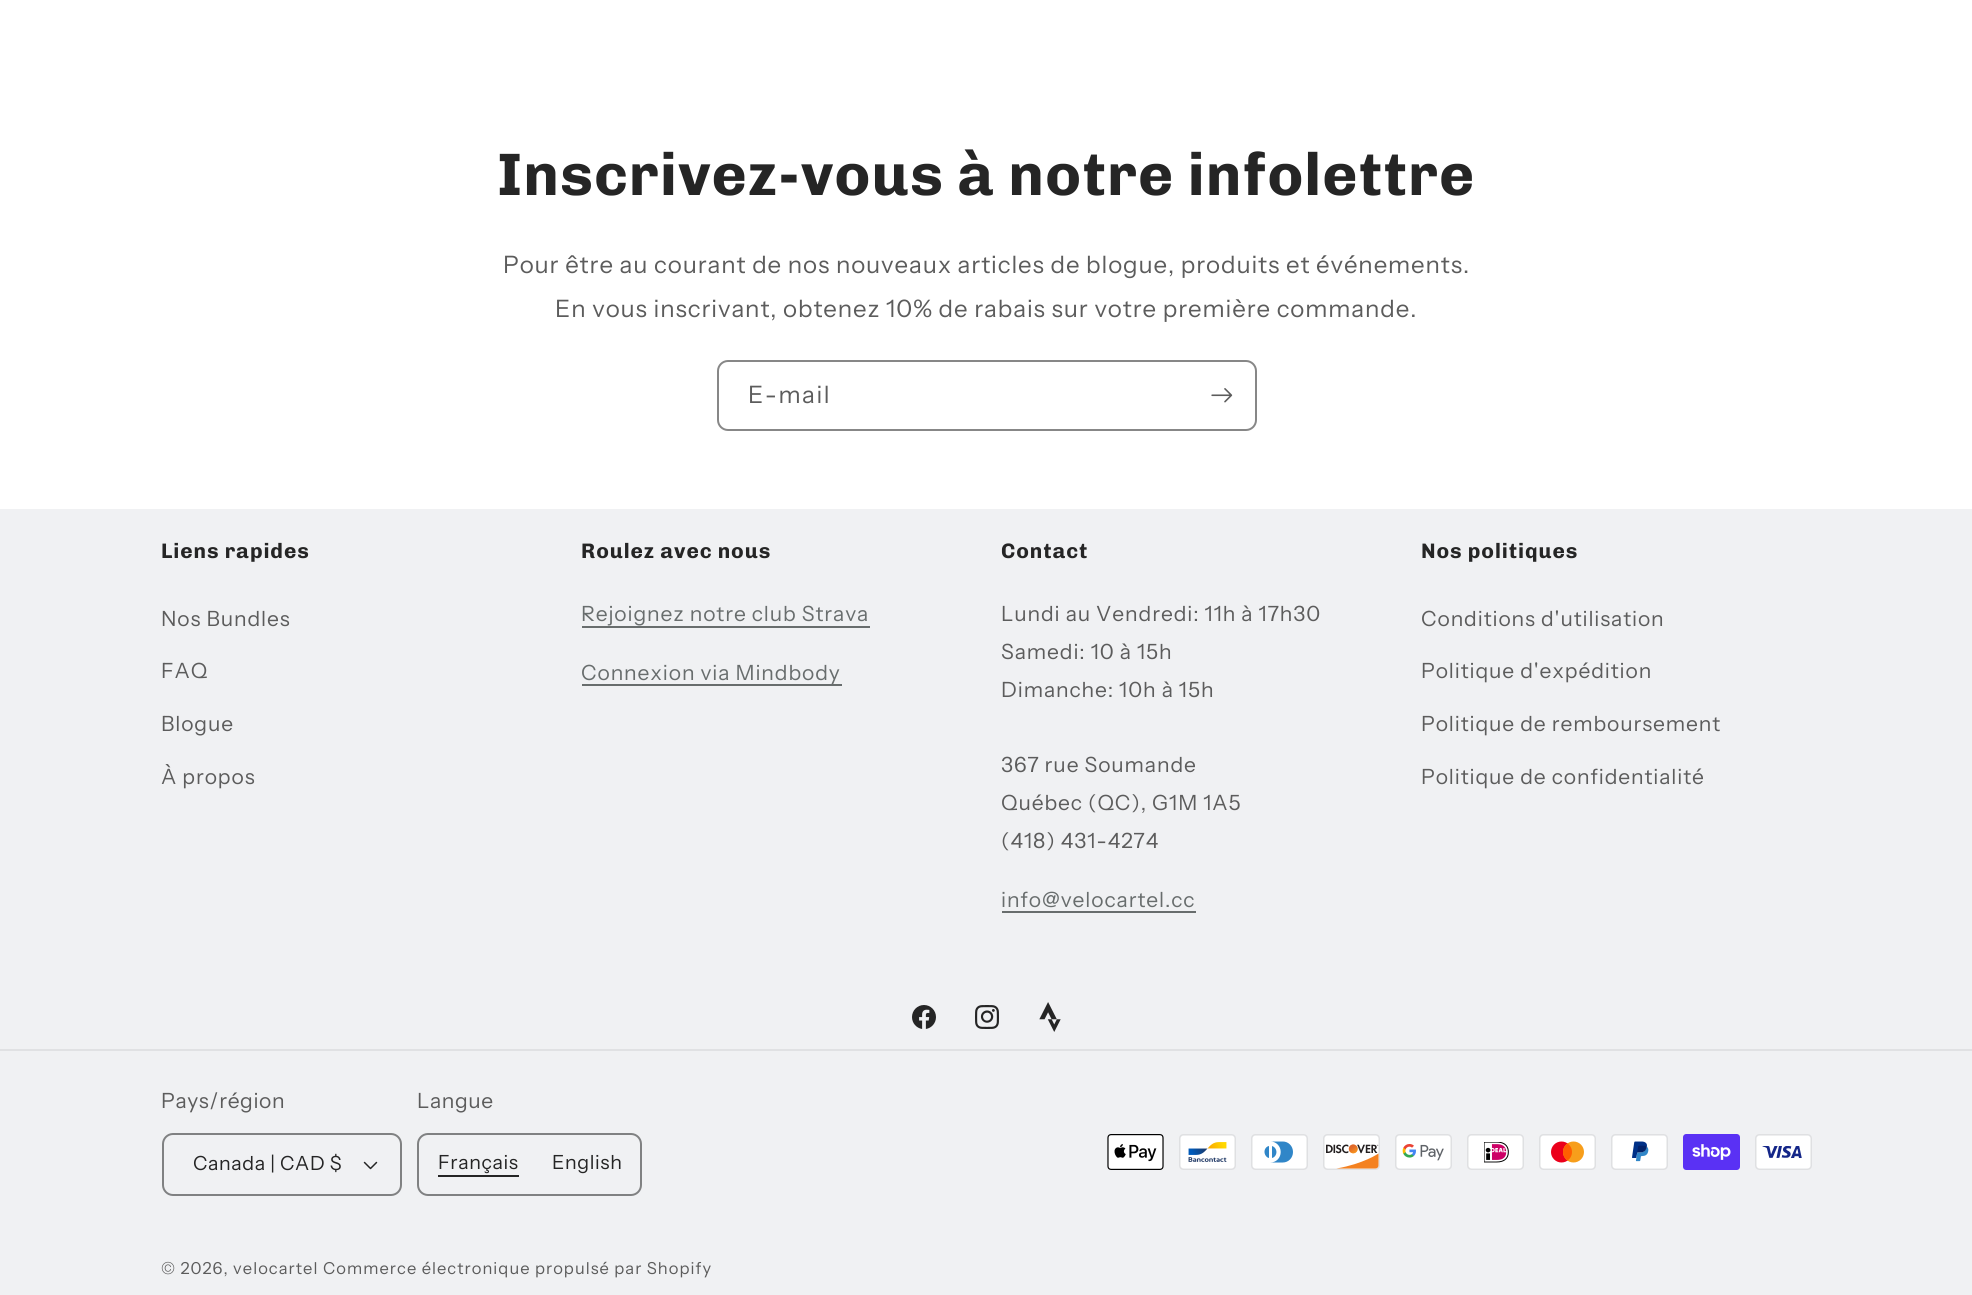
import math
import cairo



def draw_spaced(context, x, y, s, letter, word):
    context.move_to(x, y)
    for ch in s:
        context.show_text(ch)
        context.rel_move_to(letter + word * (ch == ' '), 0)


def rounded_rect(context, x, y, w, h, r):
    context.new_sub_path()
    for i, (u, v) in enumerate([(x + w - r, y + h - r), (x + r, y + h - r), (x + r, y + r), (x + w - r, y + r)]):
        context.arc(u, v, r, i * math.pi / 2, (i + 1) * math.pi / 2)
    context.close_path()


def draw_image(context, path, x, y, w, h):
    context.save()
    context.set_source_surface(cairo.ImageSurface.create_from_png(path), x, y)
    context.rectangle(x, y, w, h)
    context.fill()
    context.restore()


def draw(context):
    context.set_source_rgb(1, 1, 1)
    context.paint()
    rounded_rect(context, 718, 361, 538, 69, 10)
    context.set_source_rgb(135 / 255, 135 / 255, 135 / 255)
    context.stroke()
    draw_image(context, "images/1.png", 1211, 388, 22, 15)
    context.set_source_rgb(240 / 255, 241 / 255, 243 / 255)
    context.rectangle(0, 509, 1972, 786)
    context.fill()
    context.set_source_rgb(104 / 255, 109 / 255, 109 / 255)
    context.rectangle(582, 626, 288, 2)
    context.fill()
    context.rectangle(582, 684, 260, 2)
    context.fill()
    context.rectangle(1002, 911, 194, 2)
    context.fill()
    draw_image(context, "images/2.png", 912, 1005, 24, 24)
    draw_image(context, "images/3.png", 975, 1005, 24, 24)
    draw_image(context, "images/4.png", 1039, 1002, 22, 30)
    context.set_source_rgb(224 / 255, 225 / 255, 227 / 255)
    context.rectangle(0, 1049, 1972, 2)
    context.fill()
    draw_image(context, "images/5.png", 363, 1161, 15, 9)
    rounded_rect(context, 163, 1134, 238, 61, 10)
    context.set_source_rgb(128 / 255, 129 / 255, 130 / 255)
    context.stroke()
    context.set_source_rgb(37 / 255, 37 / 255, 37 / 255)
    context.rectangle(438, 1175, 81, 2)
    context.fill()
    rounded_rect(context, 418, 1134, 223, 61, 10)
    context.set_source_rgb(128 / 255, 129 / 255, 130 / 255)
    context.stroke()
    draw_image(context, "images/6.png", 1107, 1134, 57, 36)
    draw_image(context, "images/7.png", 1179, 1134, 57, 36)
    draw_image(context, "images/8.png", 1251, 1134, 57, 36)
    draw_image(context, "images/9.png", 1323, 1134, 57, 36)
    draw_image(context, "images/10.png", 1395, 1134, 57, 36)
    draw_image(context, "images/11.png", 1467, 1134, 57, 36)
    draw_image(context, "images/12.png", 1539, 1134, 57, 36)
    draw_image(context, "images/13.png", 1611, 1134, 57, 36)
    draw_image(context, "images/14.png", 1683, 1134, 57, 36)
    draw_image(context, "images/15.png", 1755, 1134, 57, 36)
    context.select_font_face("Chivo", cairo.FontSlant.NORMAL, cairo.FontWeight.BOLD)
    context.set_font_size(60)
    context.set_source_rgb(37 / 255, 37 / 255, 37 / 255)
    draw_spaced(context, 497, 195, "Inscrivez-vous à notre infolettre", 0.9, 0)
    context.select_font_face("Instrument Sans")
    context.set_font_size(24)
    context.set_source_rgb(92 / 255, 92 / 255, 92 / 255)
    draw_spaced(context, 503, 273, "Pour être au courant de nos nouveaux articles de blogue, produits et événements.", 0.9, 0)
    draw_spaced(context, 555, 317, "En vous inscrivant, obtenez 10% de rabais sur votre première commande.", 0.9, 0)
    draw_spaced(context, 748, 403, "E-mail", 1.5, 0)
    context.select_font_face("Chivo", cairo.FontSlant.NORMAL, cairo.FontWeight.BOLD)
    context.set_font_size(21)
    context.set_source_rgb(37 / 255, 37 / 255, 37 / 255)
    draw_spaced(context, 161, 558, "Liens rapides", 0.9, 0)
    context.select_font_face("Instrument Sans")
    context.set_source_rgb(92 / 255, 92 / 255, 92 / 255)
    draw_spaced(context, 161, 626, "Nos Bundles", 0.9, 0)
    draw_spaced(context, 161, 678, "FAQ", 0.9, 0)
    draw_spaced(context, 161, 731, "Blogue", 0.9, 0)
    draw_spaced(context, 161, 784, "À propos", 0.9, 0)
    context.select_font_face("Chivo", cairo.FontSlant.NORMAL, cairo.FontWeight.BOLD)
    context.set_source_rgb(37 / 255, 37 / 255, 37 / 255)
    draw_spaced(context, 581, 558, "Roulez avec nous", 0.9, 0)
    context.select_font_face("Instrument Sans")
    context.set_source_rgb(104 / 255, 109 / 255, 109 / 255)
    draw_spaced(context, 581, 621, "Rejoignez notre club Strava", 0.9, 0)
    draw_spaced(context, 581, 680, "Connexion via Mindbody", 0.9, 0)
    context.select_font_face("Chivo", cairo.FontSlant.NORMAL, cairo.FontWeight.BOLD)
    context.set_source_rgb(37 / 255, 37 / 255, 37 / 255)
    draw_spaced(context, 1001, 558, "Contact", 0.9, 0)
    context.select_font_face("Instrument Sans")
    context.set_source_rgb(92 / 255, 92 / 255, 92 / 255)
    draw_spaced(context, 1001, 621, "Lundi au Vendredi: 11h à 17h30", 0.9, 0)
    draw_spaced(context, 1001, 659, "Samedi: 10 à 15h", 0.9, 0)
    draw_spaced(context, 1001, 697, "Dimanche: 10h à 15h", 0.9, 0)
    draw_spaced(context, 1001, 772, "367 rue Soumande", 0.9, 0)
    draw_spaced(context, 1001, 810, "Québec (QC), G1M 1A5", 0.9, 0)
    draw_spaced(context, 1001, 848, "(418) 431-4274", 0.9, 0)
    context.set_source_rgb(104 / 255, 109 / 255, 109 / 255)
    draw_spaced(context, 1001, 907, "info@velocartel.cc", 0.9, 0)
    context.select_font_face("Chivo", cairo.FontSlant.NORMAL, cairo.FontWeight.BOLD)
    context.set_source_rgb(37 / 255, 37 / 255, 37 / 255)
    draw_spaced(context, 1421, 558, "Nos politiques", 0.9, 0)
    context.select_font_face("Instrument Sans")
    context.set_source_rgb(92 / 255, 92 / 255, 92 / 255)
    draw_spaced(context, 1421, 626, "Conditions d'utilisation", 0.9, 0)
    draw_spaced(context, 1421, 678, "Politique d'expédition", 0.9, 0)
    draw_spaced(context, 1421, 731, "Politique de remboursement", 0.9, 0)
    draw_spaced(context, 1421, 784, "Politique de confidentialité", 0.9, 0)
    draw_spaced(context, 161, 1108, "Pays/région", 0.6, 0)
    context.set_font_size(19.5)
    context.set_source_rgb(37 / 255, 37 / 255, 37 / 255)
    draw_spaced(context, 193, 1170, "Canada | CAD $", 0.6, 0)
    context.set_font_size(21)
    context.set_source_rgb(92 / 255, 92 / 255, 92 / 255)
    draw_spaced(context, 417, 1108, "Langue", 0.6, 0)
    context.set_font_size(19.5)
    context.set_source_rgb(37 / 255, 37 / 255, 37 / 255)
    draw_spaced(context, 438, 1169, "Français", 0.6, 0)
    draw_spaced(context, 552, 1169, "English", 0.6, 0)
    context.set_font_size(16.5)
    context.set_source_rgb(92 / 255, 92 / 255, 92 / 255)
    draw_spaced(context, 161, 1274, "© 2026, velocartel", 1.05, 0)
    draw_spaced(context, 323, 1274, "Commerce électronique propulsé par Shopify", 1.05, 0)


surface = cairo.ImageSurface(cairo.Format.RGB24, 1972, 1295)
context = cairo.Context(surface)
options = cairo.FontOptions()
options.set_hint_metrics(cairo.HintMetrics.OFF)
options.set_hint_style(cairo.HintStyle.NONE)
context.set_font_options(options)
context.set_miter_limit(4)
draw(context)
surface.write_to_png("out.png")
